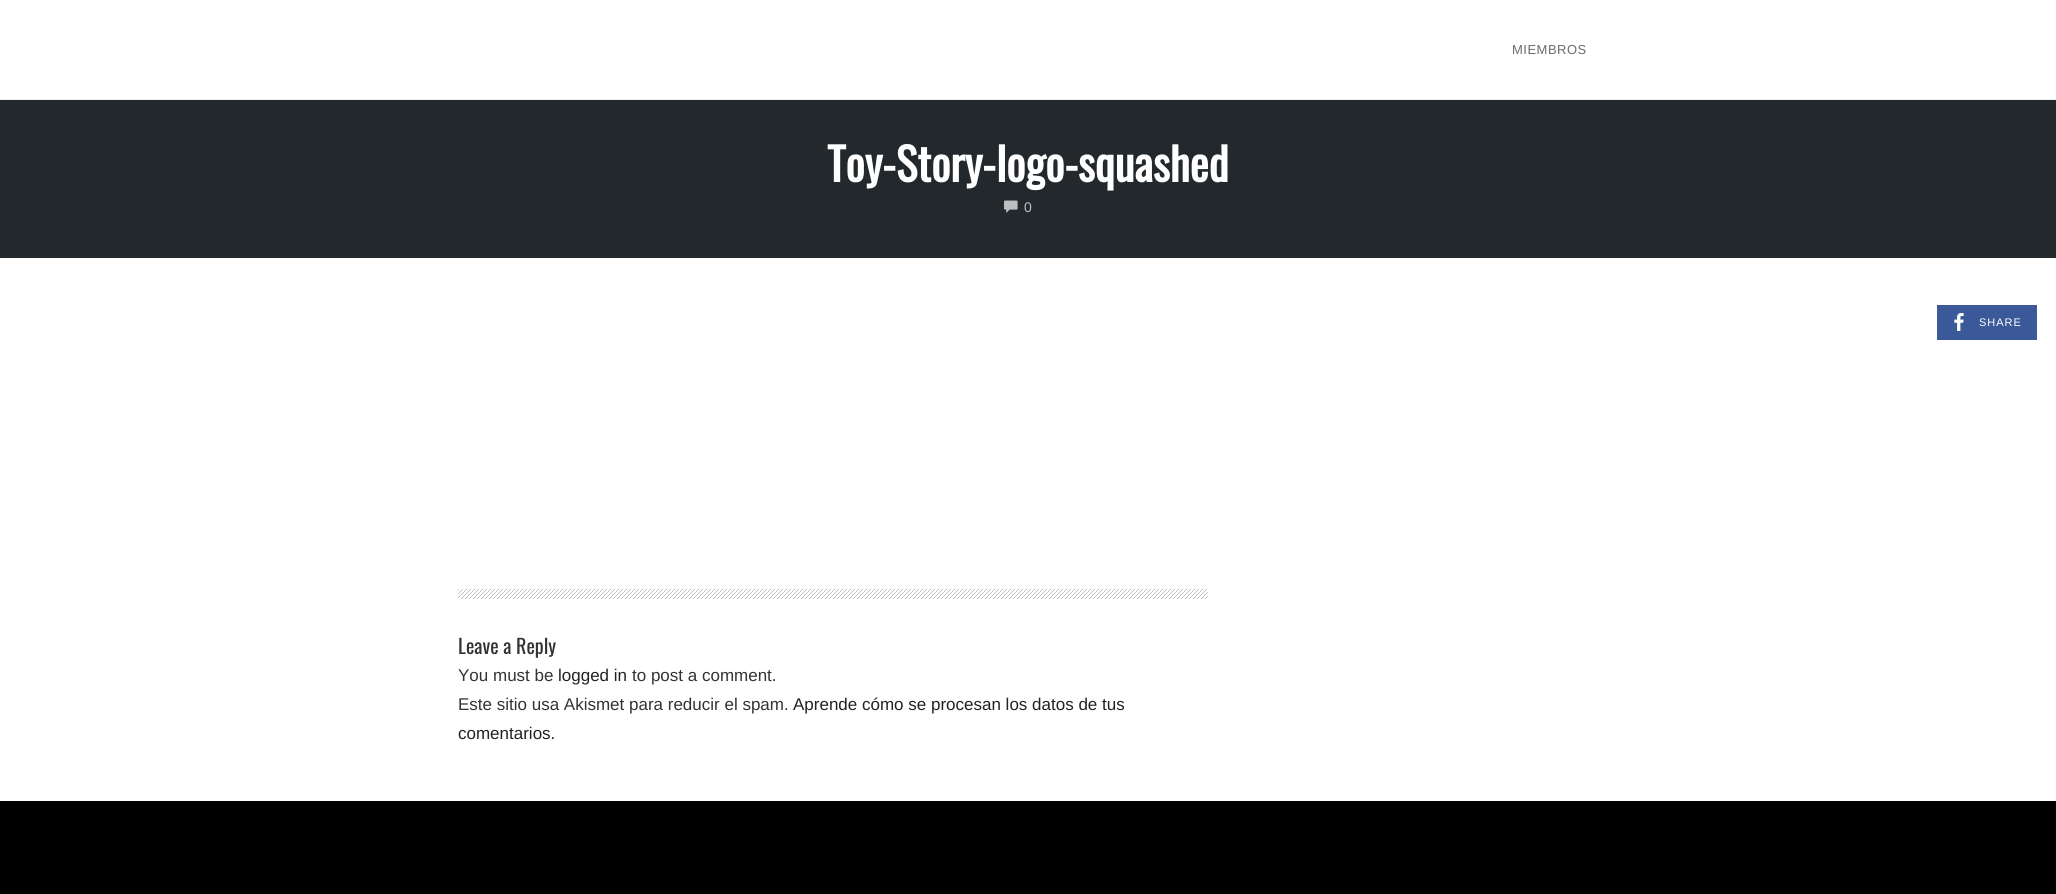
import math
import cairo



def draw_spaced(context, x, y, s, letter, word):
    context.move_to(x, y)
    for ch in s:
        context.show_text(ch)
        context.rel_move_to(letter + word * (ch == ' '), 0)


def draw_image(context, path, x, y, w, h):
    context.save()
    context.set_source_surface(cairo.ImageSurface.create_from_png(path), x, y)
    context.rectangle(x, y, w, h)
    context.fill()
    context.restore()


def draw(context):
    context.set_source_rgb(1, 1, 1)
    context.paint()
    context.set_source_rgb(240 / 255, 240 / 255, 240 / 255)
    context.rectangle(0, 99, 2056, 1)
    context.fill()
    context.set_source_rgb(35 / 255, 40 / 255, 45 / 255)
    context.rectangle(0, 100, 2056, 158)
    context.fill()
    draw_image(context, "images/1.png", 1004, 200, 14, 13)
    draw_image(context, "images/2.png", 458, 589, 750, 10)
    context.set_source_rgb(59 / 255, 89 / 255, 152 / 255)
    context.rectangle(1937, 305, 100, 35)
    context.fill()
    draw_image(context, "images/3.png", 1954, 313, 10, 18)
    context.set_source_rgb(0, 0, 0)
    context.rectangle(0, 801, 2056, 93)
    context.fill()
    context.select_font_face("Liberation Sans")
    context.set_font_size(13)
    context.set_source_rgb(107 / 255, 107 / 255, 107 / 255)
    draw_spaced(context, 1512, 54, "MIEMBROS", 0.5, 0)
    context.select_font_face("Oswald", cairo.FontSlant.NORMAL, cairo.FontWeight.BOLD)
    context.set_font_size(45)
    context.set_source_rgb(1, 1, 1)
    context.move_to(827, 182)
    context.show_text("Toy-Story-logo-squashed")
    context.select_font_face("Liberation Sans")
    context.set_font_size(14)
    context.set_source_rgb(189 / 255, 191 / 255, 192 / 255)
    context.move_to(1024, 212)
    context.show_text("0")
    context.select_font_face("Oswald")
    context.set_font_size(20)
    context.set_source_rgb(51 / 255, 51 / 255, 51 / 255)
    context.move_to(458, 654)
    context.show_text("Leave a Reply")
    context.select_font_face("Liberation Sans")
    context.set_font_size(17)
    context.move_to(458, 681)
    context.show_text("You must be")
    context.set_source_rgb(34 / 255, 34 / 255, 34 / 255)
    context.move_to(558, 681)
    context.show_text("logged in")
    context.set_source_rgb(51 / 255, 51 / 255, 51 / 255)
    context.move_to(632, 681)
    context.show_text("to post a comment.")
    context.move_to(458, 710)
    context.show_text("Este sitio usa Akismet para reducir el spam.")
    context.set_source_rgb(34 / 255, 34 / 255, 34 / 255)
    context.move_to(793, 710)
    context.show_text("Aprende cómo se procesan los datos de tus")
    context.move_to(458, 739)
    context.show_text("comentarios.")
    context.set_font_size(11)
    context.set_source_rgb(1, 1, 1)
    draw_spaced(context, 1979, 326, "SHARE", 1, 0)


surface = cairo.ImageSurface(cairo.Format.RGB24, 2056, 894)
context = cairo.Context(surface)
options = cairo.FontOptions()
options.set_hint_metrics(cairo.HintMetrics.OFF)
options.set_hint_style(cairo.HintStyle.NONE)
context.set_font_options(options)
context.set_miter_limit(4)
draw(context)
surface.write_to_png("out.png")
